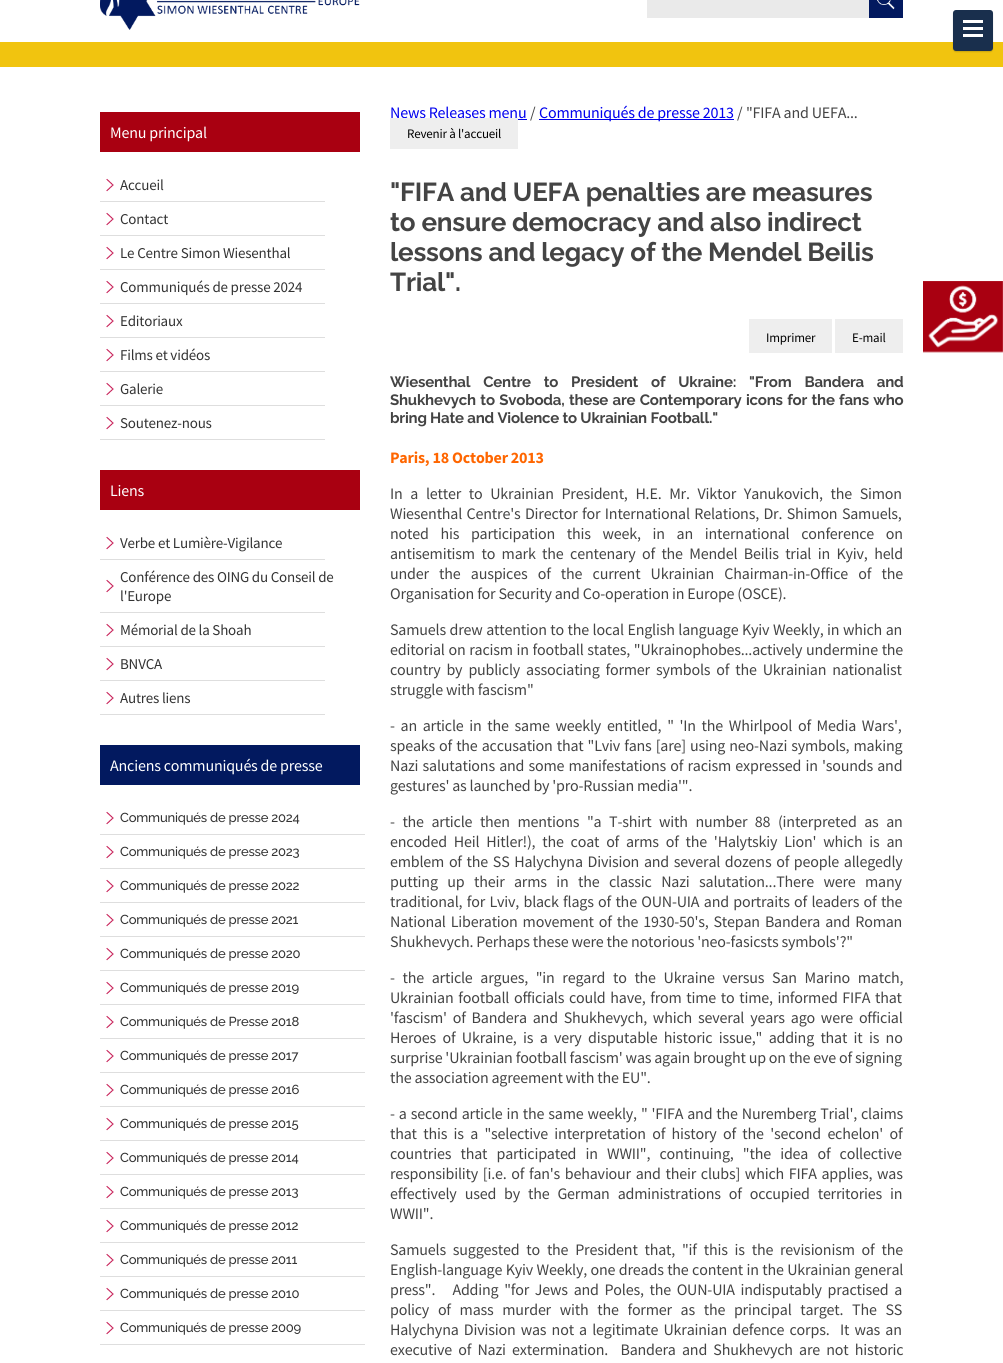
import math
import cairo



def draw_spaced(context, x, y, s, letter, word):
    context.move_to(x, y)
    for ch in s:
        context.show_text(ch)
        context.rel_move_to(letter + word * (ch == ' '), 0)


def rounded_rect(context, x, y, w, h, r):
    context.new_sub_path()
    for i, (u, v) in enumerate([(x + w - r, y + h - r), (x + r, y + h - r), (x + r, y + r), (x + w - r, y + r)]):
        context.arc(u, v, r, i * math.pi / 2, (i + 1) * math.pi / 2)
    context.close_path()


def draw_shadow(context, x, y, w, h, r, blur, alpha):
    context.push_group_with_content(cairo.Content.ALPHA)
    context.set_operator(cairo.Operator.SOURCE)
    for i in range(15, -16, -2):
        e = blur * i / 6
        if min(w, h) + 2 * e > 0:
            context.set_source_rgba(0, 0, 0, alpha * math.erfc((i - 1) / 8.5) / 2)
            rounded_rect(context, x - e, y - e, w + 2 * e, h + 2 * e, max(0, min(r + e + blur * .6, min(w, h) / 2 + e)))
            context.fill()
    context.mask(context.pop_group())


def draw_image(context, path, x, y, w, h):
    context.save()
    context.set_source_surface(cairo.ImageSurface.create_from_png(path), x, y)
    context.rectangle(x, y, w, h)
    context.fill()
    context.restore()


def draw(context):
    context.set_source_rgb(1, 1, 1)
    context.paint()
    context.set_source_rgb(241 / 255, 196 / 255, 15 / 255)
    context.rectangle(0, 42, 1003, 25)
    context.fill()
    draw_image(context, "images/1.png", 100, 0, 260, 30)
    context.set_source_rgb(234 / 255, 234 / 255, 234 / 255)
    context.rectangle(647, 0, 222, 18)
    context.fill()
    context.set_source_rgb(2 / 255, 25 / 255, 95 / 255)
    context.rectangle(869, 0, 34, 18)
    context.fill()
    draw_image(context, "images/2.png", 877, 0, 18, 10)
    context.set_source_rgb(0, 0, 0)
    draw_shadow(context, 953, 11, 40, 41, 3, 0.5, 0.15)
    context.set_source_rgb(25 / 255, 47 / 255, 77 / 255)
    rounded_rect(context, 953, 10, 40, 41, 3)
    context.fill()
    context.set_source_rgb(1, 1, 1)
    context.rectangle(963, 20, 20, 3)
    context.fill()
    context.rectangle(963, 27, 20, 3)
    context.fill()
    context.rectangle(963, 34, 20, 3)
    context.fill()
    context.set_source_rgb(169 / 255, 0, 17 / 255)
    context.rectangle(100, 112, 260, 40)
    context.fill()
    draw_image(context, "images/3.png", 106, 178, 8, 14)
    context.set_source_rgb(222 / 255, 222 / 255, 222 / 255)
    context.rectangle(100, 201, 225, 1)
    context.fill()
    draw_image(context, "images/3.png", 106, 212, 8, 14)
    context.rectangle(100, 235, 225, 1)
    context.fill()
    draw_image(context, "images/3.png", 106, 246, 8, 14)
    context.rectangle(100, 269, 225, 1)
    context.fill()
    draw_image(context, "images/3.png", 106, 280, 8, 14)
    context.rectangle(100, 303, 225, 1)
    context.fill()
    draw_image(context, "images/3.png", 106, 314, 8, 14)
    context.rectangle(100, 337, 225, 1)
    context.fill()
    draw_image(context, "images/3.png", 106, 348, 8, 14)
    context.rectangle(100, 371, 225, 1)
    context.fill()
    draw_image(context, "images/3.png", 106, 382, 8, 14)
    context.rectangle(100, 405, 225, 1)
    context.fill()
    draw_image(context, "images/3.png", 106, 416, 8, 14)
    context.rectangle(100, 439, 225, 1)
    context.fill()
    context.set_source_rgb(169 / 255, 0, 17 / 255)
    context.rectangle(100, 470, 260, 40)
    context.fill()
    draw_image(context, "images/3.png", 106, 536, 8, 14)
    context.set_source_rgb(222 / 255, 222 / 255, 222 / 255)
    context.rectangle(100, 559, 225, 1)
    context.fill()
    draw_image(context, "images/3.png", 106, 579, 8, 14)
    context.rectangle(100, 612, 225, 1)
    context.fill()
    draw_image(context, "images/3.png", 106, 623, 8, 14)
    context.rectangle(100, 646, 225, 1)
    context.fill()
    draw_image(context, "images/3.png", 106, 657, 8, 14)
    context.rectangle(100, 680, 225, 1)
    context.fill()
    draw_image(context, "images/3.png", 106, 691, 8, 14)
    context.rectangle(100, 714, 225, 1)
    context.fill()
    context.set_source_rgb(2 / 255, 25 / 255, 95 / 255)
    context.rectangle(100, 745, 260, 40)
    context.fill()
    draw_image(context, "images/3.png", 106, 811, 8, 14)
    context.set_source_rgb(222 / 255, 222 / 255, 222 / 255)
    context.rectangle(100, 834, 265, 1)
    context.fill()
    draw_image(context, "images/3.png", 106, 845, 8, 14)
    context.rectangle(100, 868, 265, 1)
    context.fill()
    draw_image(context, "images/3.png", 106, 879, 8, 14)
    context.rectangle(100, 902, 265, 1)
    context.fill()
    draw_image(context, "images/3.png", 106, 913, 8, 14)
    context.rectangle(100, 936, 265, 1)
    context.fill()
    draw_image(context, "images/3.png", 106, 947, 8, 14)
    context.rectangle(100, 970, 265, 1)
    context.fill()
    draw_image(context, "images/3.png", 106, 981, 8, 14)
    context.rectangle(100, 1004, 265, 1)
    context.fill()
    draw_image(context, "images/3.png", 106, 1015, 8, 14)
    context.rectangle(100, 1038, 265, 1)
    context.fill()
    draw_image(context, "images/3.png", 106, 1049, 8, 14)
    context.rectangle(100, 1072, 265, 1)
    context.fill()
    draw_image(context, "images/3.png", 106, 1083, 8, 14)
    context.rectangle(100, 1106, 265, 1)
    context.fill()
    draw_image(context, "images/3.png", 106, 1117, 8, 14)
    context.rectangle(100, 1140, 265, 1)
    context.fill()
    draw_image(context, "images/3.png", 106, 1151, 8, 14)
    context.rectangle(100, 1174, 265, 1)
    context.fill()
    draw_image(context, "images/3.png", 106, 1185, 8, 14)
    context.rectangle(100, 1208, 265, 1)
    context.fill()
    draw_image(context, "images/3.png", 106, 1219, 8, 14)
    context.rectangle(100, 1242, 265, 1)
    context.fill()
    draw_image(context, "images/3.png", 106, 1253, 8, 14)
    context.rectangle(100, 1276, 265, 1)
    context.fill()
    draw_image(context, "images/3.png", 106, 1287, 8, 14)
    context.rectangle(100, 1310, 265, 1)
    context.fill()
    draw_image(context, "images/3.png", 106, 1321, 8, 14)
    context.rectangle(100, 1344, 265, 1)
    context.fill()
    context.set_source_rgb(0, 0, 238 / 255)
    context.rectangle(518, 119, 9, 1)
    context.fill()
    context.rectangle(539, 119, 195, 1)
    context.fill()
    context.set_source_rgb(238 / 255, 238 / 255, 238 / 255)
    context.rectangle(749, 319, 83, 34)
    context.fill()
    context.rectangle(835, 319, 68, 34)
    context.fill()
    draw_image(context, "images/4.png", 923, 281, 80, 72)
    context.select_font_face("Source Sans Pro")
    context.set_font_size(16)
    context.set_source_rgb(1, 1, 1)
    draw_spaced(context, 110, 138, "Menu principal", -0.2, 0)
    context.set_font_size(15)
    context.set_source_rgb(51 / 255, 51 / 255, 51 / 255)
    draw_spaced(context, 120, 190, "Accueil", -0.2, 0)
    draw_spaced(context, 120, 224, "Contact", -0.2, 0)
    draw_spaced(context, 120, 258, "Le Centre Simon Wiesenthal", -0.2, 0)
    draw_spaced(context, 120, 292, "Communiqués de presse 2024", -0.2, 0)
    draw_spaced(context, 120, 326, "Editoriaux", -0.2, 0)
    draw_spaced(context, 120, 360, "Films et vidéos", -0.2, 0)
    draw_spaced(context, 120, 394, "Galerie", -0.2, 0)
    draw_spaced(context, 120, 428, "Soutenez-nous", -0.2, 0)
    context.set_font_size(16)
    context.set_source_rgb(1, 1, 1)
    draw_spaced(context, 110, 496, "Liens", -0.2, 0)
    context.set_font_size(15)
    context.set_source_rgb(51 / 255, 51 / 255, 51 / 255)
    draw_spaced(context, 120, 548, "Verbe et Lumière-Vigilance", -0.2, 0)
    draw_spaced(context, 120, 582, "Conférence des OING du Conseil de", -0.2, 0)
    draw_spaced(context, 120, 601, "l'Europe", -0.2, 0)
    draw_spaced(context, 120, 635, "Mémorial de la Shoah", -0.2, 0)
    draw_spaced(context, 120, 669, "BNVCA", -0.2, 0)
    draw_spaced(context, 120, 703, "Autres liens", -0.2, 0)
    context.set_font_size(16)
    context.set_source_rgb(1, 1, 1)
    draw_spaced(context, 110, 771, "Anciens communiqués de presse", -0.2, 0)
    context.select_font_face("Raleway Medium")
    context.set_font_size(13)
    context.set_source_rgb(51 / 255, 51 / 255, 51 / 255)
    draw_spaced(context, 120, 822, "Communiqués de presse 2024", -0.2, 0)
    draw_spaced(context, 120, 856, "Communiqués de presse 2023", -0.2, 0)
    draw_spaced(context, 120, 890, "Communiqués de presse 2022", -0.2, 0)
    draw_spaced(context, 120, 924, "Communiqués de presse 2021", -0.2, 0)
    draw_spaced(context, 120, 958, "Communiqués de presse 2020", -0.2, 0)
    draw_spaced(context, 120, 992, "Communiqués de presse 2019", -0.2, 0)
    draw_spaced(context, 120, 1026, "Communiqués de Presse 2018", -0.2, 0)
    draw_spaced(context, 120, 1060, "Communiqués de presse 2017", -0.2, 0)
    draw_spaced(context, 120, 1094, "Communiqués de presse 2016", -0.2, 0)
    draw_spaced(context, 120, 1128, "Communiqués de presse 2015", -0.2, 0)
    draw_spaced(context, 120, 1162, "Communiqués de presse 2014", -0.2, 0)
    draw_spaced(context, 120, 1196, "Communiqués de presse 2013", -0.2, 0)
    draw_spaced(context, 120, 1230, "Communiqués de presse 2012", -0.2, 0)
    draw_spaced(context, 120, 1264, "Communiqués de presse 2011", -0.2, 0)
    draw_spaced(context, 120, 1298, "Communiqués de presse 2010", -0.2, 0)
    draw_spaced(context, 120, 1332, "Communiqués de presse 2009", -0.2, 0)
    context.select_font_face("Source Sans Pro")
    context.set_font_size(16)
    context.set_source_rgb(0, 0, 238 / 255)
    draw_spaced(context, 390, 118, "News Releases menu", -0.2, 0)
    context.set_source_rgb(68 / 255, 68 / 255, 68 / 255)
    draw_spaced(context, 530, 118, "/", -0.2, 0)
    context.set_source_rgb(0, 0, 238 / 255)
    draw_spaced(context, 539, 118, "Communiqués de presse 2013", -0.2, 0)
    context.set_source_rgb(68 / 255, 68 / 255, 68 / 255)
    draw_spaced(context, 737, 118, "/", -0.2, 0)
    draw_spaced(context, 746, 118, "\"FIFA and UEFA...", -0.2, 0)
    context.set_source_rgb(238 / 255, 238 / 255, 238 / 255)
    context.rectangle(390, 118, 128, 31)
    context.fill()
    context.set_font_size(13)
    context.set_source_rgb(0, 0, 0)
    draw_spaced(context, 407, 138, "Revenir à l'accueil", -0.2, 0)
    context.select_font_face("Raleway", cairo.FontSlant.NORMAL, cairo.FontWeight.BOLD)
    context.set_font_size(26)
    context.set_source_rgb(68 / 255, 68 / 255, 68 / 255)
    draw_spaced(context, 390, 201, "\"FIFA and UEFA penalties are measures", -0.2, 0)
    draw_spaced(context, 390, 231, "to ensure democracy and also indirect", -0.2, 0)
    draw_spaced(context, 390, 261, "lessons and legacy of the Mendel Beilis", -0.2, 0)
    draw_spaced(context, 390, 291, "Trial\".", -0.2, 0)
    context.select_font_face("Source Sans Pro")
    context.set_font_size(13)
    context.set_source_rgb(0, 0, 0)
    draw_spaced(context, 766, 342, "Imprimer", -0.2, 0)
    draw_spaced(context, 852, 342, "E-mail", -0.2, 0)
    context.select_font_face("Raleway", cairo.FontSlant.NORMAL, cairo.FontWeight.BOLD)
    context.set_font_size(15)
    context.set_source_rgb(68 / 255, 68 / 255, 68 / 255)
    draw_spaced(context, 390, 387, "Wiesenthal Centre to President of Ukraine: \"From Bandera and", -0.2, 9.5)
    draw_spaced(context, 390, 405, "Shukhevych to Svoboda, these are Contemporary icons for the fans who", -0.2, 1)
    draw_spaced(context, 390, 423, "bring Hate and Violence to Ukrainian Football.\"", -0.2, 0)
    context.select_font_face("Source Sans Pro", cairo.FontSlant.NORMAL, cairo.FontWeight.BOLD)
    context.set_font_size(16)
    context.set_source_rgb(1, 102 / 255, 0)
    draw_spaced(context, 390, 463, "Paris, 18 October 2013", -0.2, 0)
    context.select_font_face("Source Sans Pro")
    context.set_source_rgb(68 / 255, 68 / 255, 68 / 255)
    draw_spaced(context, 390, 499, "In a letter to Ukrainian President, H.E. Mr. Viktor Yanukovich, the Simon", -0.2, 4.75)
    draw_spaced(context, 390, 519, "Wiesenthal Centre's Director for International Relations, Dr. Shimon Samuels,", -0.2, 1.5)
    draw_spaced(context, 390, 539, "noted his participation this week, in an international conference on", -0.2, 8.75)
    draw_spaced(context, 390, 559, "antisemitism to mark the centenary of the Mendel Beilis trial in Kyiv, held", -0.2, 3.5)
    draw_spaced(context, 390, 579, "under the auspices of the current Ukrainian Chairman-in-Office of the", -0.2, 7.25)
    draw_spaced(context, 390, 599, "Organisation for Security and Co-operation in Europe (OSCE).", -0.2, 0)
    draw_spaced(context, 390, 635, "Samuels drew attention to the local English language Kyiv Weekly, in which an", -0.2, 0.6)
    draw_spaced(context, 390, 655, "editorial on racism in football states, \"Ukrainophobes...actively undermine the", -0.2, 0.75)
    draw_spaced(context, 390, 675, "country by publicly associating former symbols of the Ukrainian nationalist", -0.2, 3)
    draw_spaced(context, 390, 695, "struggle with fascism\"", -0.2, 0)
    draw_spaced(context, 390, 731, "- an article in the same weekly entitled, \" 'In the Whirlpool of Media Wars',", -0.2, 2.75)
    draw_spaced(context, 390, 751, "speaks of the accusation that \"Lviv fans [are] using neo-Nazi symbols, making", -0.2, 1.1)
    draw_spaced(context, 390, 771, "Nazi salutations and some manifestations of racism expressed in 'sounds and", -0.2, 1.25)
    draw_spaced(context, 390, 791, "gestures' as launched by 'pro-Russian media'\".", -0.2, 0)
    draw_spaced(context, 390, 827, "- the article then mentions \"a T-shirt with number 88 (interpreted as an", -0.2, 4.6)
    draw_spaced(context, 390, 847, "encoded Heil Hitler!), the coat of arms of the 'Halytskiy Lion' which is an", -0.2, 3.9)
    draw_spaced(context, 390, 867, "emblem of the SS Halychyna Division and several dozens of people allegedly", -0.2, 1.75)
    draw_spaced(context, 390, 887, "putting up their arms in the classic Nazi salutation...There were many", -0.2, 6.5)
    draw_spaced(context, 390, 907, "traditional, for Lviv, black flags of the OUN-UIA and portraits of leaders of the", -0.2, 1.4)
    draw_spaced(context, 390, 927, "National Liberation movement of the 1930-50's, Stepan Bandera and Roman", -0.2, 2)
    draw_spaced(context, 390, 947, "Shukhevych. Perhaps these were the notorious 'neo-fasicsts symbols'?\"", -0.2, 0)
    draw_spaced(context, 390, 983, "- the article argues, \"in regard to the Ukraine versus San Marino match,", -0.2, 4.75)
    draw_spaced(context, 390, 1003, "Ukrainian football officials could have, from time to time, informed FIFA that", -0.2, 1.75)
    draw_spaced(context, 390, 1023, "'fascism' of Bandera and Shukhevych, which several years ago were official", -0.2, 2.9)
    draw_spaced(context, 390, 1043, "Heroes of Ukraine, is a very disputable historic issue,\" adding that it is no", -0.2, 3.4)
    draw_spaced(context, 390, 1063, "surprise 'Ukrainian football fascism' was again brought up on the eve of signing", -0.2, 0)
    draw_spaced(context, 390, 1083, "the association agreement with the EU\".", -0.2, 0)
    draw_spaced(context, 390, 1119, "- a second article in the same weekly, \" 'FIFA and the Nuremberg Trial', claims", -0.2, 1)
    draw_spaced(context, 390, 1139, "that this is a \"selective interpretation of history of the 'second echelon' of", -0.2, 3.4)
    draw_spaced(context, 390, 1159, "countries that participated in WWII\", continuing, \"the idea of collective", -0.2, 6.25)
    draw_spaced(context, 390, 1179, "responsibility [i.e. of fan's behaviour and their clubs] which FIFA applies, was", -0.2, 1.75)
    draw_spaced(context, 390, 1199, "effectively used by the German administrations of occupied territories in", -0.2, 5)
    draw_spaced(context, 390, 1219, "WWII\".", -0.2, 0)
    draw_spaced(context, 390, 1255, "Samuels suggested to the President that, \"if this is the revisionism of the", -0.2, 3.9)
    draw_spaced(context, 390, 1275, "English-language Kyiv Weekly, one dreads the content in the Ukrainian general", -0.2, 0.5)
    draw_spaced(context, 390, 1295, "press\".   Adding \"for Jews and Poles, the OUN-UIA indisputably practised a", -0.2, 2.75)
    draw_spaced(context, 390, 1315, "policy of mass murder with the former as the principal target. The SS", -0.2, 5.75)
    draw_spaced(context, 390, 1335, "Halychyna Division was not a legitimate Ukrainian defence corps.  It was an", -0.2, 2.25)
    draw_spaced(context, 390, 1355, "executive of Nazi extermination.  Bandera and Shukhevych are not historic", -0.2, 3.25)


surface = cairo.ImageSurface(cairo.Format.RGB24, 1003, 1363)
context = cairo.Context(surface)
options = cairo.FontOptions()
options.set_hint_metrics(cairo.HintMetrics.OFF)
options.set_hint_style(cairo.HintStyle.NONE)
context.set_font_options(options)
context.set_miter_limit(4)
draw(context)
surface.write_to_png("out.png")
